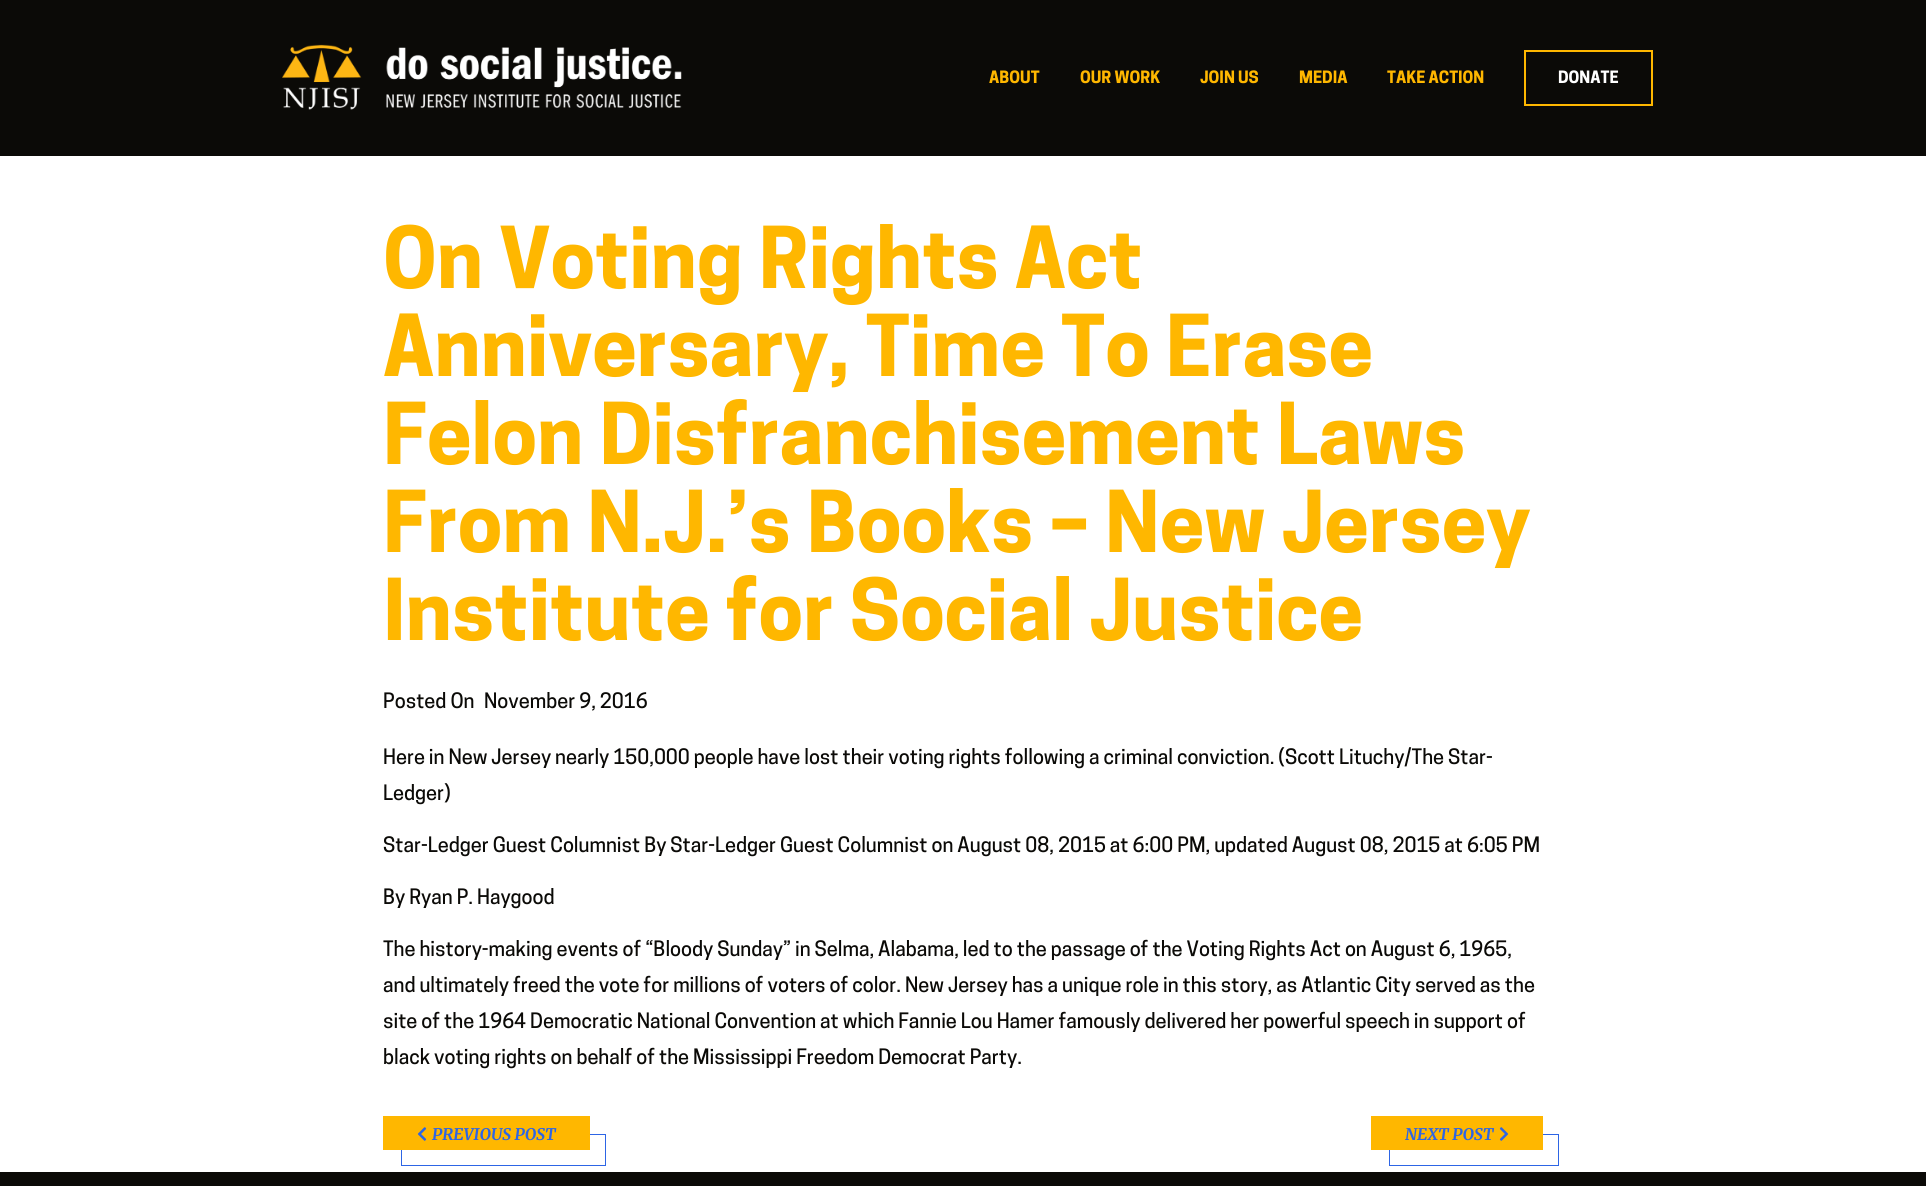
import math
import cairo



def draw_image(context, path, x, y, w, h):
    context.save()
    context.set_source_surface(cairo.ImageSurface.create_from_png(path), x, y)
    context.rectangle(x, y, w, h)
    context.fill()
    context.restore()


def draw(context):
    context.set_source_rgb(1, 1, 1)
    context.paint()
    context.set_source_rgb(11 / 255, 10 / 255, 7 / 255)
    context.rectangle(0, 0, 1926, 156)
    context.fill()
    draw_image(context, "images/1.png", 282, 44, 400, 66)
    context.rectangle(1525, 51, 127, 54)
    context.set_source_rgb(1, 183 / 255, 0)
    context.stroke()
    context.rectangle(401.5, 1134.5, 204, 31)
    context.set_source_rgb(45 / 255, 101 / 255, 229 / 255)
    context.set_line_width(1)
    context.stroke()
    context.set_source_rgb(1, 183 / 255, 0)
    context.rectangle(383, 1116, 207, 34)
    context.fill()
    draw_image(context, "images/2.png", 417, 1127, 10, 14)
    context.rectangle(1389.5, 1134.5, 169, 31)
    context.set_source_rgb(45 / 255, 101 / 255, 229 / 255)
    context.stroke()
    context.set_source_rgb(1, 183 / 255, 0)
    context.rectangle(1371, 1116, 172, 34)
    context.fill()
    draw_image(context, "images/3.png", 1499, 1127, 10, 14)
    context.set_source_rgb(11 / 255, 10 / 255, 7 / 255)
    context.rectangle(0, 1172, 1926, 14)
    context.fill()
    context.select_font_face("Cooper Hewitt", cairo.FontSlant.NORMAL, cairo.FontWeight.BOLD)
    context.set_font_size(16)
    context.set_source_rgb(1, 183 / 255, 0)
    context.move_to(989, 83)
    context.show_text("ABOUT")
    context.move_to(1080, 83)
    context.show_text("OUR WORK")
    context.move_to(1200, 83)
    context.show_text("JOIN US")
    context.move_to(1299, 83)
    context.show_text("MEDIA")
    context.move_to(1387, 83)
    context.show_text("TAKE ACTION")
    context.set_source_rgb(1, 1, 1)
    context.move_to(1558, 83)
    context.show_text("DONATE")
    context.set_font_size(80)
    context.set_source_rgb(1, 183 / 255, 0)
    context.move_to(383, 288)
    context.show_text("On Voting Rights Act")
    context.move_to(383, 376)
    context.show_text("Anniversary, Time To Erase")
    context.move_to(383, 464)
    context.show_text("Felon Disfranchisement Laws")
    context.move_to(383, 552)
    context.show_text("From N.J.’s Books – New Jersey")
    context.move_to(383, 640)
    context.show_text("Institute for Social Justice")
    context.select_font_face("Cooper Hewitt Medium")
    context.set_font_size(20)
    context.set_source_rgb(11 / 255, 10 / 255, 7 / 255)
    context.move_to(383, 708)
    context.show_text("Posted On")
    context.move_to(484, 708)
    context.show_text("November 9, 2016")
    context.move_to(383, 764)
    context.show_text("Here in New Jersey nearly 150,000 people have lost their voting rights following a criminal conviction. (Scott Lituchy/The Star-")
    context.move_to(383, 800)
    context.show_text("Ledger)")
    context.move_to(383, 852)
    context.show_text("Star-Ledger Guest Columnist By Star-Ledger Guest Columnist on August 08, 2015 at 6:00 PM, updated August 08, 2015 at 6:05 PM")
    context.move_to(383, 904)
    context.show_text("By Ryan P. Haygood")
    context.move_to(383, 956)
    context.show_text("The history-making events of “Bloody Sunday” in Selma, Alabama, led to the passage of the Voting Rights Act on August 6, 1965,")
    context.move_to(383, 992)
    context.show_text("and ultimately freed the vote for millions of voters of color. New Jersey has a unique role in this story, as Atlantic City served as the")
    context.move_to(383, 1028)
    context.show_text("site of the 1964 Democratic National Convention at which Fannie Lou Hamer famously delivered her powerful speech in support of")
    context.move_to(383, 1064)
    context.show_text("black voting rights on behalf of the Mississippi Freedom Democrat Party.")
    context.select_font_face("Merriweather", cairo.FontSlant.ITALIC, cairo.FontWeight.BOLD)
    context.set_font_size(16)
    context.set_source_rgb(45 / 255, 101 / 255, 229 / 255)
    context.move_to(432, 1140)
    context.show_text("PREVIOUS POST")
    context.move_to(1405, 1140)
    context.show_text("NEXT POST")


surface = cairo.ImageSurface(cairo.Format.RGB24, 1926, 1186)
context = cairo.Context(surface)
options = cairo.FontOptions()
options.set_hint_metrics(cairo.HintMetrics.OFF)
options.set_hint_style(cairo.HintStyle.NONE)
context.set_font_options(options)
context.set_miter_limit(4)
draw(context)
surface.write_to_png("out.png")
